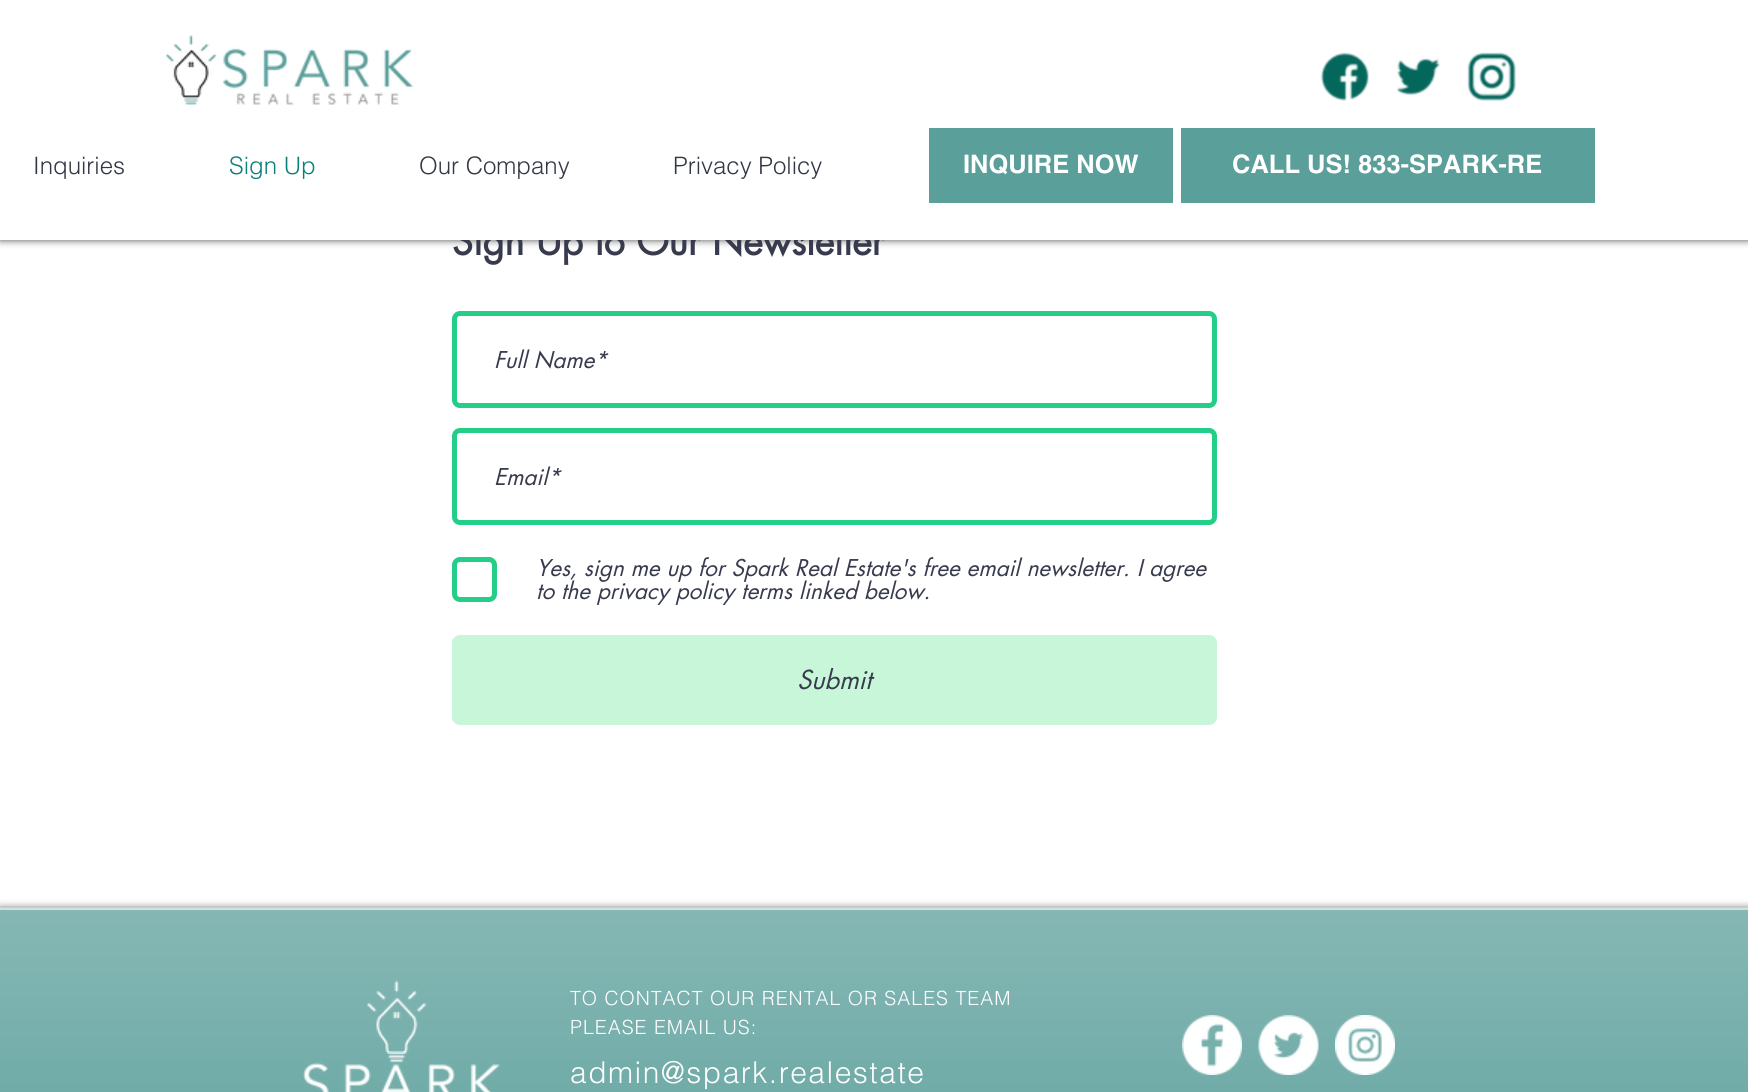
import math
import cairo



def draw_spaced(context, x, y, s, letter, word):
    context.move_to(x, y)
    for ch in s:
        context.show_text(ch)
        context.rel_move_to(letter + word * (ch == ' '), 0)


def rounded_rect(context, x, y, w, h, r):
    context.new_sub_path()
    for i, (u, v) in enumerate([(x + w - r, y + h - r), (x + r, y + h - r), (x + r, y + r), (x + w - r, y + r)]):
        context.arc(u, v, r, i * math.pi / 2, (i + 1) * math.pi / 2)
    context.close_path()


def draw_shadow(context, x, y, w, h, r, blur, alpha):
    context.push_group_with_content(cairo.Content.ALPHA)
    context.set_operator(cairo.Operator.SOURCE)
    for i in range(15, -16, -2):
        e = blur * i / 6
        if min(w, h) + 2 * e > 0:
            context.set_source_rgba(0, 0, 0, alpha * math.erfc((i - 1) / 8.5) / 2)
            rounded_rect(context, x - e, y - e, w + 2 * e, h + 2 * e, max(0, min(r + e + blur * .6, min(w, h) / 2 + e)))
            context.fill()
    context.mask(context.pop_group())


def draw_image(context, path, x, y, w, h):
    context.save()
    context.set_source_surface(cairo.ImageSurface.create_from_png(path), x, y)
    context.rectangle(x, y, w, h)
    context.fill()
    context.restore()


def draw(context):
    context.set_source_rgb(1, 1, 1)
    context.paint()
    context.set_source_rgb(0, 0, 0)
    draw_shadow(context, 0, 0, 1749, 240, 0, 4, 0.7)
    rounded_rect(context, 454.5, 313.5, 760, 92, 5.5)
    context.set_source_rgb(34 / 255, 206 / 255, 136 / 255)
    context.set_line_width(5)
    context.stroke()
    rounded_rect(context, 454.5, 430.5, 760, 92, 5.5)
    context.stroke()
    rounded_rect(context, 454.5, 559.5, 40, 40, 5.5)
    context.stroke()
    context.set_source_rgb(199 / 255, 247 / 255, 216 / 255)
    rounded_rect(context, 452, 635, 765, 90, 8)
    context.fill()
    context.set_source_rgb(0, 0, 0)
    draw_shadow(context, 0, 908, 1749, 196, 0, 4, 0.6)
    context.set_source_rgb(91 / 255, 159 / 255, 155 / 255)
    context.rectangle(0, 910, 1748, 182)
    context.fill()
    draw_image(context, "images/5.png", 0, 907, 1748, 185)
    context.set_source_rgb(206 / 255, 226 / 255, 225 / 255)
    context.rectangle(0, 908, 1748, 2)
    context.fill()
    draw_image(context, "images/6.png", 303, 980, 197, 112)
    draw_image(context, "images/7.png", 1182, 1015, 60, 60)
    draw_image(context, "images/8.png", 1258, 1015, 61, 60)
    draw_image(context, "images/9.png", 1335, 1015, 60, 60)
    context.select_font_face("futura", cairo.FontSlant.NORMAL, cairo.FontWeight.BOLD)
    context.set_font_size(37.5)
    context.set_source_rgb(55 / 255, 59 / 255, 77 / 255)
    context.move_to(452, 255)
    context.show_text("Sign Up to Our Newsletter")
    context.set_source_rgb(1, 1, 1)
    context.rectangle(0, 0, 1748, 240)
    context.fill()
    context.set_source_rgb(91 / 255, 159 / 255, 155 / 255)
    context.rectangle(1181, 128, 414, 75)
    context.fill()
    context.select_font_face("helvetica", cairo.FontSlant.NORMAL, cairo.FontWeight.BOLD)
    context.set_font_size(25.5)
    context.set_source_rgb(1, 1, 1)
    context.move_to(1232, 173)
    context.show_text("CALL US! 833-SPARK-RE")
    context.set_source_rgb(91 / 255, 159 / 255, 155 / 255)
    context.rectangle(929, 128, 244, 75)
    context.fill()
    context.set_source_rgb(1, 1, 1)
    context.move_to(963, 173)
    context.show_text("INQUIRE NOW")
    draw_image(context, "images/4.png", 1467, 52, 49, 49)
    draw_image(context, "images/3.png", 1397, 58, 43, 37)
    draw_image(context, "images/2.png", 1320, 52, 49, 49)
    context.select_font_face("helvetica Light")
    context.set_font_size(24)
    context.set_source_rgb(51 / 255, 55 / 255, 69 / 255)
    context.move_to(673, 174)
    context.show_text("Privacy Policy")
    context.move_to(419, 174)
    context.show_text("Our Company")
    context.set_source_rgb(11 / 255, 128 / 255, 120 / 255)
    context.move_to(229, 174)
    context.show_text("Sign Up")
    context.set_source_rgb(51 / 255, 55 / 255, 69 / 255)
    context.move_to(33, 174)
    context.show_text("Inquiries")
    draw_image(context, "images/1.png", 166, 35, 247, 70)
    context.select_font_face("futura", cairo.FontSlant.ITALIC)
    context.set_font_size(22.5)
    context.set_source_rgb(55 / 255, 59 / 255, 77 / 255)
    context.move_to(494, 368)
    context.show_text("Full Name*")
    context.move_to(494, 485)
    context.show_text("Email*")
    context.move_to(536, 576)
    context.show_text("Yes, sign me up for Spark Real Estate's free email newsletter. I agree")
    context.move_to(536, 599)
    context.show_text("to the privacy policy terms linked below.")
    context.set_font_size(25.5)
    context.move_to(797, 689)
    context.show_text("Submit")
    context.select_font_face("helvetica Light")
    context.set_font_size(19.5)
    context.set_source_rgb(1, 1, 1)
    draw_spaced(context, 570, 1005, "TO CONTACT OUR RENTAL OR SALES TEAM", 1, 0)
    draw_spaced(context, 570, 1034, "PLEASE EMAIL US:", 1, 0)
    context.set_font_size(30)
    draw_spaced(context, 570, 1083, "admin@spark.realestate", 1.5, 0)


surface = cairo.ImageSurface(cairo.Format.RGB24, 1748, 1092)
context = cairo.Context(surface)
options = cairo.FontOptions()
options.set_hint_metrics(cairo.HintMetrics.OFF)
options.set_hint_style(cairo.HintStyle.NONE)
context.set_font_options(options)
context.set_miter_limit(4)
draw(context)
surface.write_to_png("out.png")
